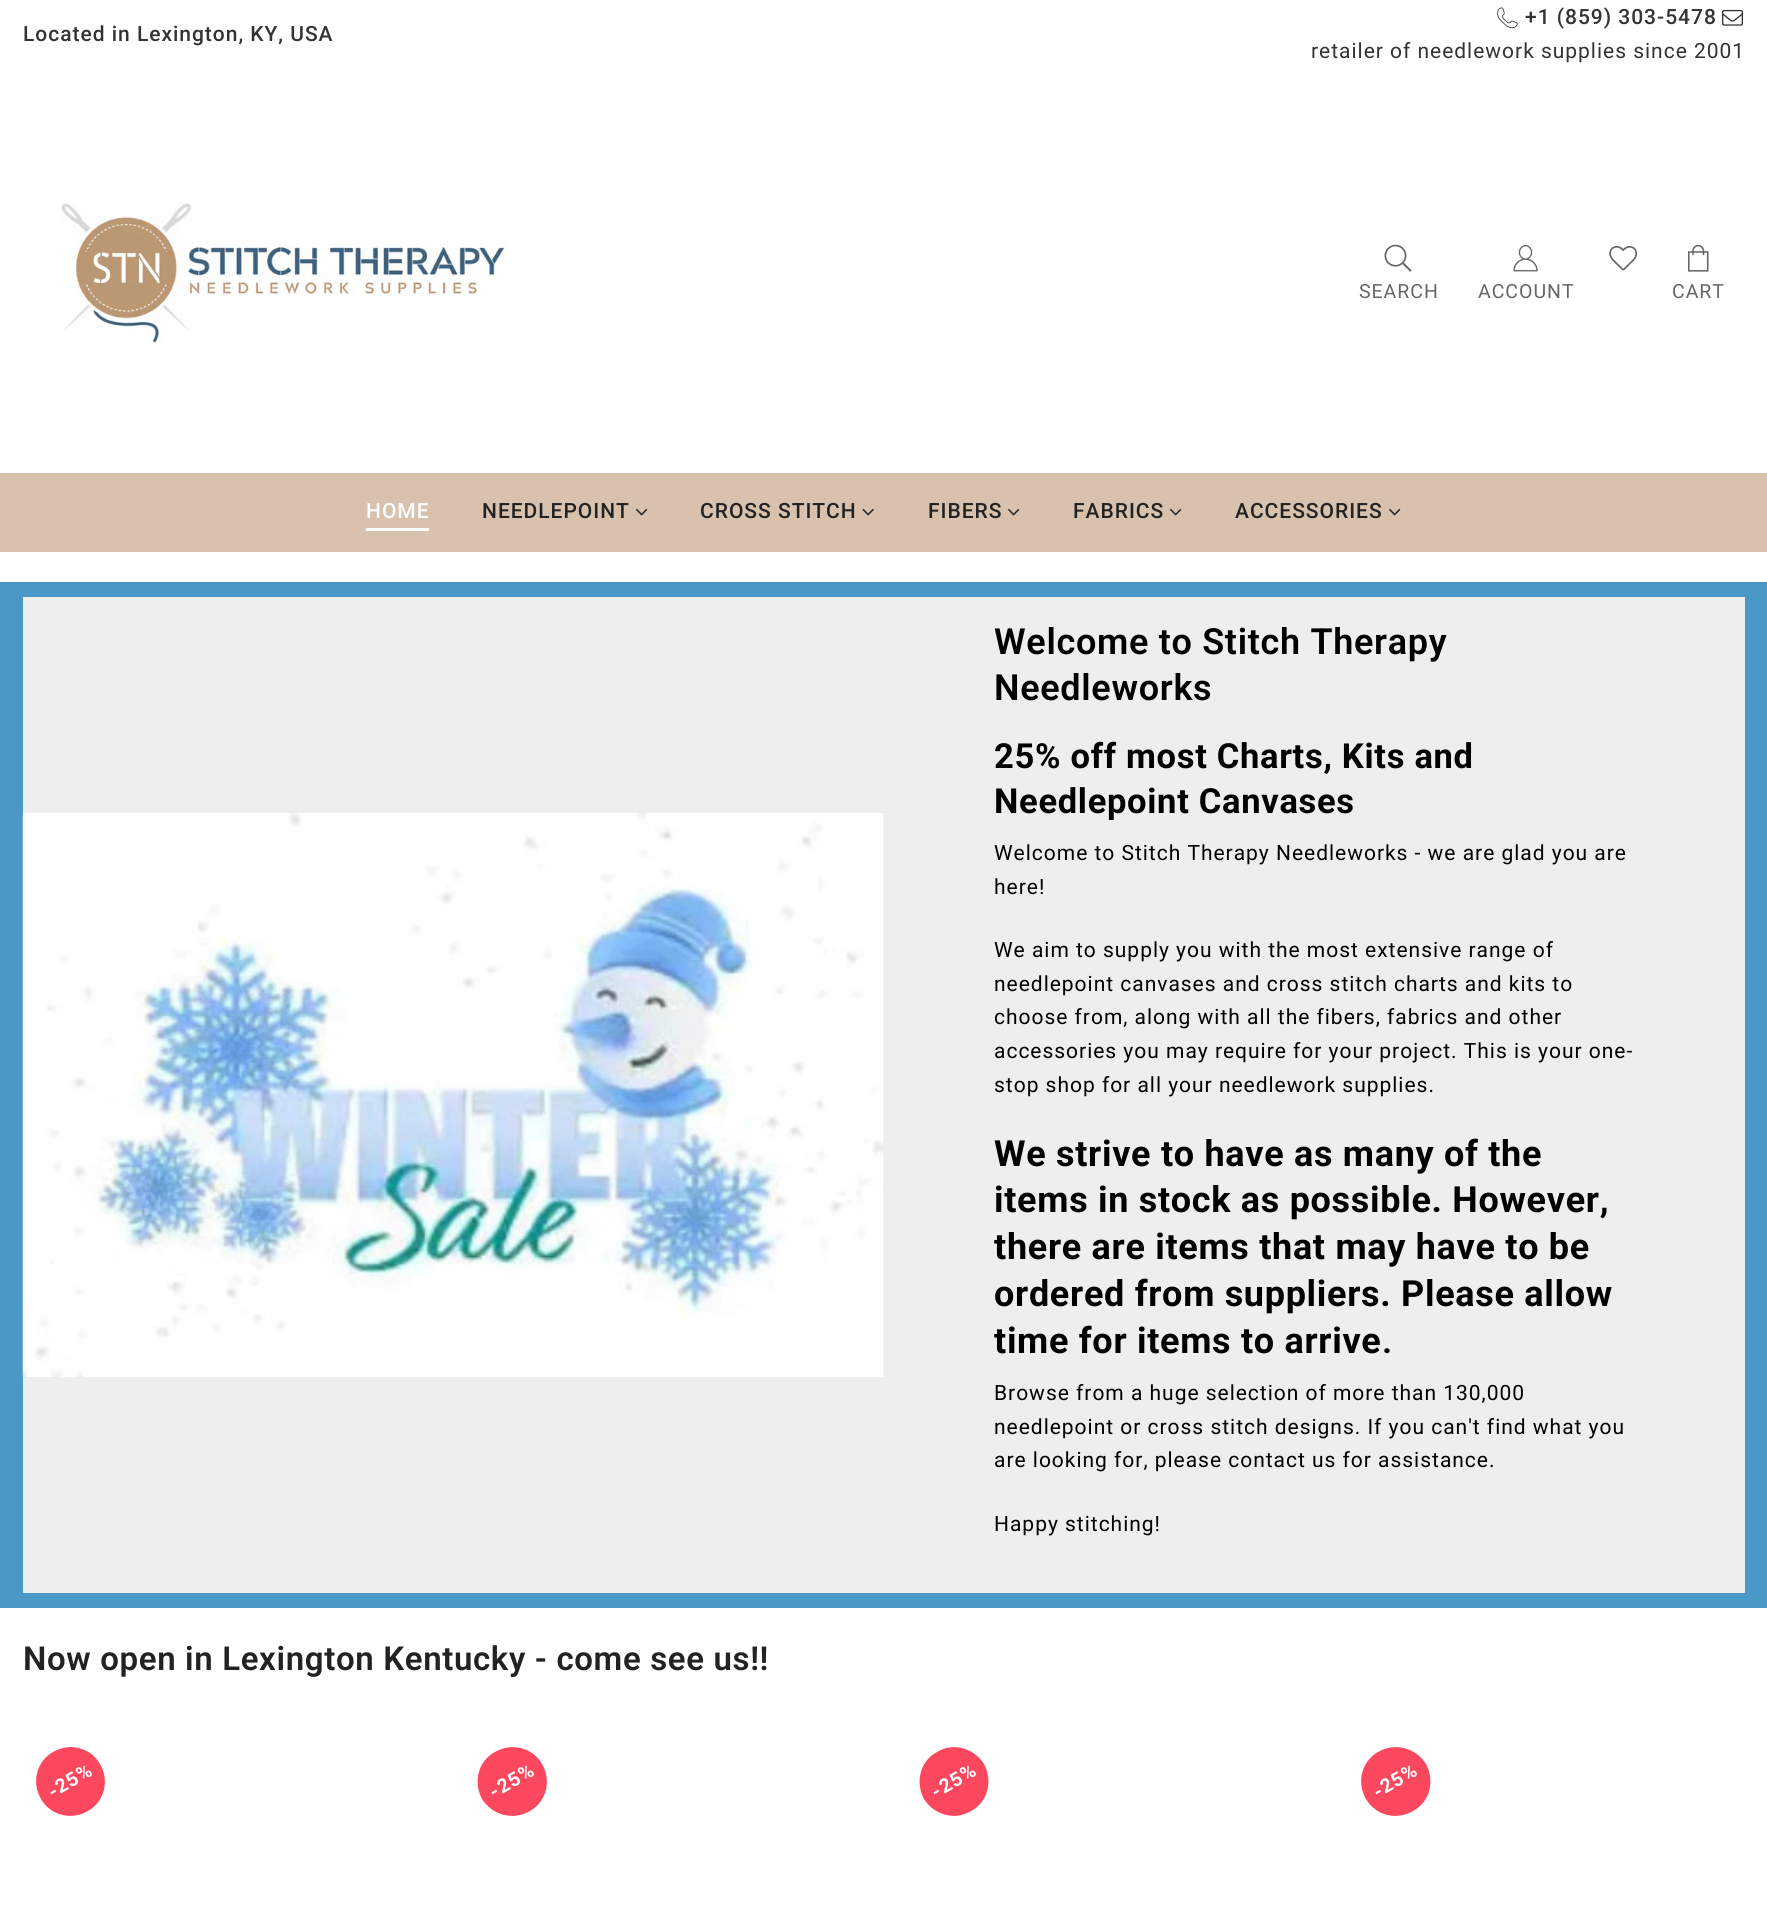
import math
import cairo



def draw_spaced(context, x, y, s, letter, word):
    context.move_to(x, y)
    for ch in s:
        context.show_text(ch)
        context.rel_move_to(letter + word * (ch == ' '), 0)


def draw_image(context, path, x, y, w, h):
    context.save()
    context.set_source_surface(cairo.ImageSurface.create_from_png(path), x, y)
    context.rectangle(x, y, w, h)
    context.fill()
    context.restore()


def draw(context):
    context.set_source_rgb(1, 1, 1)
    context.paint()
    draw_image(context, "images/1.png", 1497, 7, 21, 22)
    draw_image(context, "images/2.png", 1722, 9, 21, 17)
    draw_image(context, "images/3.png", 61, 202, 446, 141)
    draw_image(context, "images/4.png", 1609, 246, 29, 25)
    draw_image(context, "images/5.png", 1384, 244, 28, 28)
    draw_image(context, "images/6.png", 1513, 245, 25, 27)
    draw_image(context, "images/7.png", 1688, 244, 21, 28)
    context.set_source_rgb(216 / 255, 194 / 255, 174 / 255)
    context.rectangle(0, 473, 1767, 79)
    context.fill()
    context.set_source_rgb(1, 1, 1)
    context.rectangle(366, 528, 63, 3)
    context.fill()
    draw_image(context, "images/8.png", 636, 508, 12, 8)
    draw_image(context, "images/9.png", 862, 508, 12, 8)
    draw_image(context, "images/8.png", 1008, 508, 12, 8)
    draw_image(context, "images/8.png", 1170, 508, 12, 8)
    draw_image(context, "images/8.png", 1389, 508, 12, 8)
    context.set_source_rgb(73 / 255, 152 / 255, 197 / 255)
    context.rectangle(0, 582, 1767, 1026)
    context.fill()
    context.set_source_rgb(238 / 255, 238 / 255, 238 / 255)
    context.rectangle(23, 597, 1722, 996)
    context.fill()
    draw_image(context, "images/10.png", 22, 813, 862, 564)
    context.set_source_rgb(251 / 255, 72 / 255, 94 / 255)
    context.new_path()
    context.move_to(53, 1752)
    context.curve_to(70, 1742, 91, 1748, 100, 1764)
    context.curve_to(110, 1781, 104, 1802, 88, 1811)
    context.curve_to(71, 1821, 50, 1815, 41, 1799)
    context.curve_to(31, 1782, 37, 1761, 53, 1752)
    context.close_path()
    context.fill()
    context.new_path()
    context.move_to(495, 1752)
    context.curve_to(512, 1742, 533, 1748, 542, 1764)
    context.curve_to(552, 1781, 546, 1802, 530, 1811)
    context.curve_to(513, 1821, 492, 1815, 482, 1799)
    context.curve_to(473, 1782, 478, 1761, 495, 1752)
    context.close_path()
    context.fill()
    context.new_path()
    context.move_to(937, 1752)
    context.curve_to(953, 1742, 974, 1748, 984, 1764)
    context.curve_to(993, 1781, 988, 1802, 971, 1811)
    context.curve_to(955, 1821, 934, 1815, 924, 1799)
    context.curve_to(915, 1782, 920, 1761, 937, 1752)
    context.close_path()
    context.fill()
    context.new_path()
    context.move_to(1378, 1752)
    context.curve_to(1395, 1742, 1416, 1748, 1426, 1764)
    context.curve_to(1435, 1781, 1430, 1802, 1413, 1811)
    context.curve_to(1396, 1821, 1375, 1815, 1366, 1799)
    context.curve_to(1356, 1782, 1362, 1761, 1378, 1752)
    context.close_path()
    context.fill()
    context.select_font_face("Roboto Medium")
    context.set_font_size(21)
    context.set_source_rgb(51 / 255, 51 / 255, 51 / 255)
    draw_spaced(context, 23, 41, "Located in Lexington, KY, USA", 0.98, 0)
    draw_spaced(context, 1525, 24, "+1 (859) 303-5478", 0.98, 0)
    context.select_font_face("Roboto")
    draw_spaced(context, 1311, 58, "retailer of needlework supplies since 2001", 0.98, 0)
    context.set_font_size(19.5)
    context.set_source_rgb(102 / 255, 102 / 255, 102 / 255)
    draw_spaced(context, 1359, 298, "SEARCH", 0.98, 0)
    draw_spaced(context, 1478, 298, "ACCOUNT", 0.98, 0)
    draw_spaced(context, 1672, 298, "CART", 0.98, 0)
    context.select_font_face("Roboto Medium")
    context.set_font_size(21)
    context.set_source_rgb(1, 1, 1)
    draw_spaced(context, 366, 518, "HOME", 0.98, 0)
    context.set_source_rgb(34 / 255, 34 / 255, 34 / 255)
    draw_spaced(context, 482, 518, "NEEDLEPOINT", 0.98, 0)
    draw_spaced(context, 700, 518, "CROSS STITCH", 0.98, 0)
    draw_spaced(context, 928, 518, "FIBERS", 0.98, 0)
    draw_spaced(context, 1073, 518, "FABRICS", 0.98, 0)
    draw_spaced(context, 1235, 518, "ACCESSORIES", 0.98, 0)
    context.select_font_face("Roboto SemiBold")
    context.set_font_size(36)
    context.set_source_rgb(0, 0, 0)
    draw_spaced(context, 994, 654, "Welcome to Stitch Therapy", 0.7, 0)
    draw_spaced(context, 994, 700, "Needleworks", 0.7, 0)
    context.select_font_face("Roboto", cairo.FontSlant.NORMAL, cairo.FontWeight.BOLD)
    context.set_font_size(34.5)
    draw_spaced(context, 994, 768, "25% off most Charts, Kits and", 0.7, 0)
    draw_spaced(context, 994, 813, "Needlepoint Canvases", 0.7, 0)
    context.select_font_face("Roboto")
    context.set_font_size(21)
    draw_spaced(context, 994, 860, "Welcome to Stitch Therapy Needleworks - we are glad you are", 0.98, 0)
    draw_spaced(context, 994, 894, "here!", 0.98, 0)
    draw_spaced(context, 994, 957, "We aim to supply you with the most extensive range of", 0.98, 0)
    draw_spaced(context, 994, 991, "needlepoint canvases and cross stitch charts and kits to", 0.98, 0)
    draw_spaced(context, 994, 1024, "choose from, along with all the fibers, fabrics and other", 0.98, 0)
    draw_spaced(context, 994, 1058, "accessories you may require for your project. This is your one-", 0.98, 0)
    draw_spaced(context, 994, 1092, "stop shop for all your needlework supplies.", 0.98, 0)
    context.select_font_face("Roboto", cairo.FontSlant.NORMAL, cairo.FontWeight.BOLD)
    context.set_font_size(36)
    draw_spaced(context, 994, 1166, "We strive to have as many of the", 0.7, 0)
    draw_spaced(context, 994, 1212, "items in stock as possible. However,", 0.7, 0)
    draw_spaced(context, 994, 1259, "there are items that may have to be", 0.7, 0)
    draw_spaced(context, 994, 1306, "ordered from suppliers. Please allow", 0.7, 0)
    draw_spaced(context, 994, 1353, "time for items to arrive", 0.7, 0)
    context.select_font_face("Roboto SemiBold")
    draw_spaced(context, 1382, 1353, ".", 0.7, 0)
    context.select_font_face("Roboto")
    context.set_font_size(21)
    draw_spaced(context, 994, 1400, "Browse from a huge selection of more than 130,000", 0.98, 0)
    draw_spaced(context, 994, 1434, "needlepoint or cross stitch designs. If you can't find what you", 0.98, 0)
    draw_spaced(context, 994, 1467, "are looking for, please contact us for assistance.", 0.98, 0)
    draw_spaced(context, 994, 1531, "Happy stitching!", 0.98, 0)
    context.select_font_face("Roboto SemiBold")
    context.set_font_size(33)
    context.set_source_rgb(34 / 255, 34 / 255, 34 / 255)
    draw_spaced(context, 23, 1670, "Now open in Lexington Kentucky - come see us!!", 0.65, 0)
    context.select_font_face("Roboto", cairo.FontSlant.NORMAL, cairo.FontWeight.BOLD)
    context.set_font_size(19.5)
    context.set_source_rgb(1, 1, 1)
    context.save()
    context.translate(53, 1799)
    context.rotate(-30 * math.pi / 180)
    draw_spaced(context, 0, 0, "-", 1, 0)
    context.restore()
    context.save()
    context.translate(60, 1794)
    context.rotate(-30 * math.pi / 180)
    draw_spaced(context, 0, 0, "25%", 1, 0)
    context.restore()
    context.save()
    context.translate(494, 1799)
    context.rotate(-30 * math.pi / 180)
    draw_spaced(context, 0, 0, "-", 1, 0)
    context.restore()
    context.save()
    context.translate(502, 1794)
    context.rotate(-30 * math.pi / 180)
    draw_spaced(context, 0, 0, "25%", 1, 0)
    context.restore()
    context.save()
    context.translate(936, 1799)
    context.rotate(-30 * math.pi / 180)
    draw_spaced(context, 0, 0, "-", 1, 0)
    context.restore()
    context.save()
    context.translate(944, 1794)
    context.rotate(-30 * math.pi / 180)
    draw_spaced(context, 0, 0, "25%", 1, 0)
    context.restore()
    context.save()
    context.translate(1378, 1799)
    context.rotate(-30 * math.pi / 180)
    draw_spaced(context, 0, 0, "-", 1, 0)
    context.restore()
    context.save()
    context.translate(1385, 1794)
    context.rotate(-30 * math.pi / 180)
    draw_spaced(context, 0, 0, "25%", 1, 0)
    context.restore()


surface = cairo.ImageSurface(cairo.Format.RGB24, 1767, 1919)
context = cairo.Context(surface)
options = cairo.FontOptions()
options.set_hint_metrics(cairo.HintMetrics.OFF)
options.set_hint_style(cairo.HintStyle.NONE)
context.set_font_options(options)
context.set_miter_limit(4)
draw(context)
surface.write_to_png("out.png")
